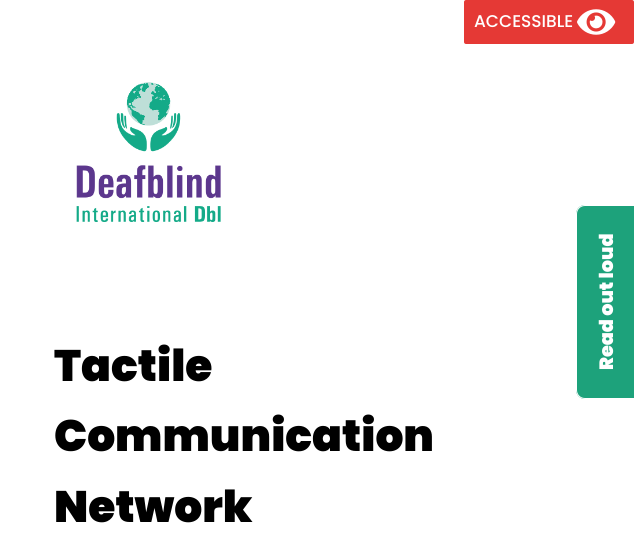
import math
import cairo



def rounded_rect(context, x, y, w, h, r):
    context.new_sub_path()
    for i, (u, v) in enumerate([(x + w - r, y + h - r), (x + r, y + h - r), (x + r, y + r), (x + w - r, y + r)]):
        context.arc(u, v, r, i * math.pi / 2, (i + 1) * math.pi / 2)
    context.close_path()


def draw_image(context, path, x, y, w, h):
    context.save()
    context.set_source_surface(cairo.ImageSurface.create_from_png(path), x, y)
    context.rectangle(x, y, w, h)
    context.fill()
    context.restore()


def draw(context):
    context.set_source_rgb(1, 1, 1)
    context.paint()
    context.set_source_rgb(229 / 255, 57 / 255, 53 / 255)
    rounded_rect(context, 464, 0, 170, 44, 2)
    context.fill()
    draw_image(context, "images/1.png", 577, 9, 39, 26)
    draw_image(context, "images/2.png", 76, 82, 145, 140)
    context.set_source_rgb(29 / 255, 162 / 255, 123 / 255)
    context.new_path()
    context.move_to(576, 390)
    context.line_to(576, 214)
    context.curve_to(576, 209, 580, 205, 585, 205)
    context.line_to(634, 205)
    context.line_to(634, 399)
    context.line_to(585, 399)
    context.curve_to(580, 399, 576, 395, 576, 390)
    context.close_path()
    context.fill()
    context.set_source_rgb(1, 1, 1)
    context.set_fill_rule(cairo.FillRule.EVEN_ODD)
    context.new_path()
    context.move_to(576, 390)
    context.line_to(576, 214)
    context.curve_to(576, 209, 580, 205, 585, 205)
    context.line_to(634, 205)
    context.line_to(634, 399)
    context.line_to(585, 399)
    context.curve_to(580, 399, 576, 395, 576, 390)
    context.close_path()
    context.move_to(577, 390)
    context.line_to(577, 214)
    context.curve_to(577, 210, 580, 206, 585, 206)
    context.line_to(634, 206)
    context.line_to(634, 398)
    context.line_to(585, 398)
    context.curve_to(580, 398, 577, 394, 577, 390)
    context.close_path()
    context.fill()
    context.select_font_face("Poppins Medium")
    context.set_font_size(17)
    context.move_to(474, 27)
    context.show_text("ACCESSIBLE")
    context.select_font_face("Poppins Black")
    context.set_font_size(44)
    context.set_source_rgb(0, 0, 0)
    context.move_to(54, 381)
    context.show_text("Tactile")
    context.move_to(54, 451)
    context.show_text("Communication")
    context.move_to(54, 522)
    context.show_text("Network")
    context.set_font_size(19.25)
    context.set_source_rgb(1, 1, 1)
    context.save()
    context.translate(613, 370)
    context.rotate(-90 * math.pi / 180)
    context.move_to(0, 0)
    context.show_text("Read out loud")
    context.restore()


surface = cairo.ImageSurface(cairo.Format.RGB24, 634, 559)
context = cairo.Context(surface)
options = cairo.FontOptions()
options.set_hint_metrics(cairo.HintMetrics.OFF)
options.set_hint_style(cairo.HintStyle.NONE)
context.set_font_options(options)
context.set_miter_limit(4)
draw(context)
surface.write_to_png("out.png")
